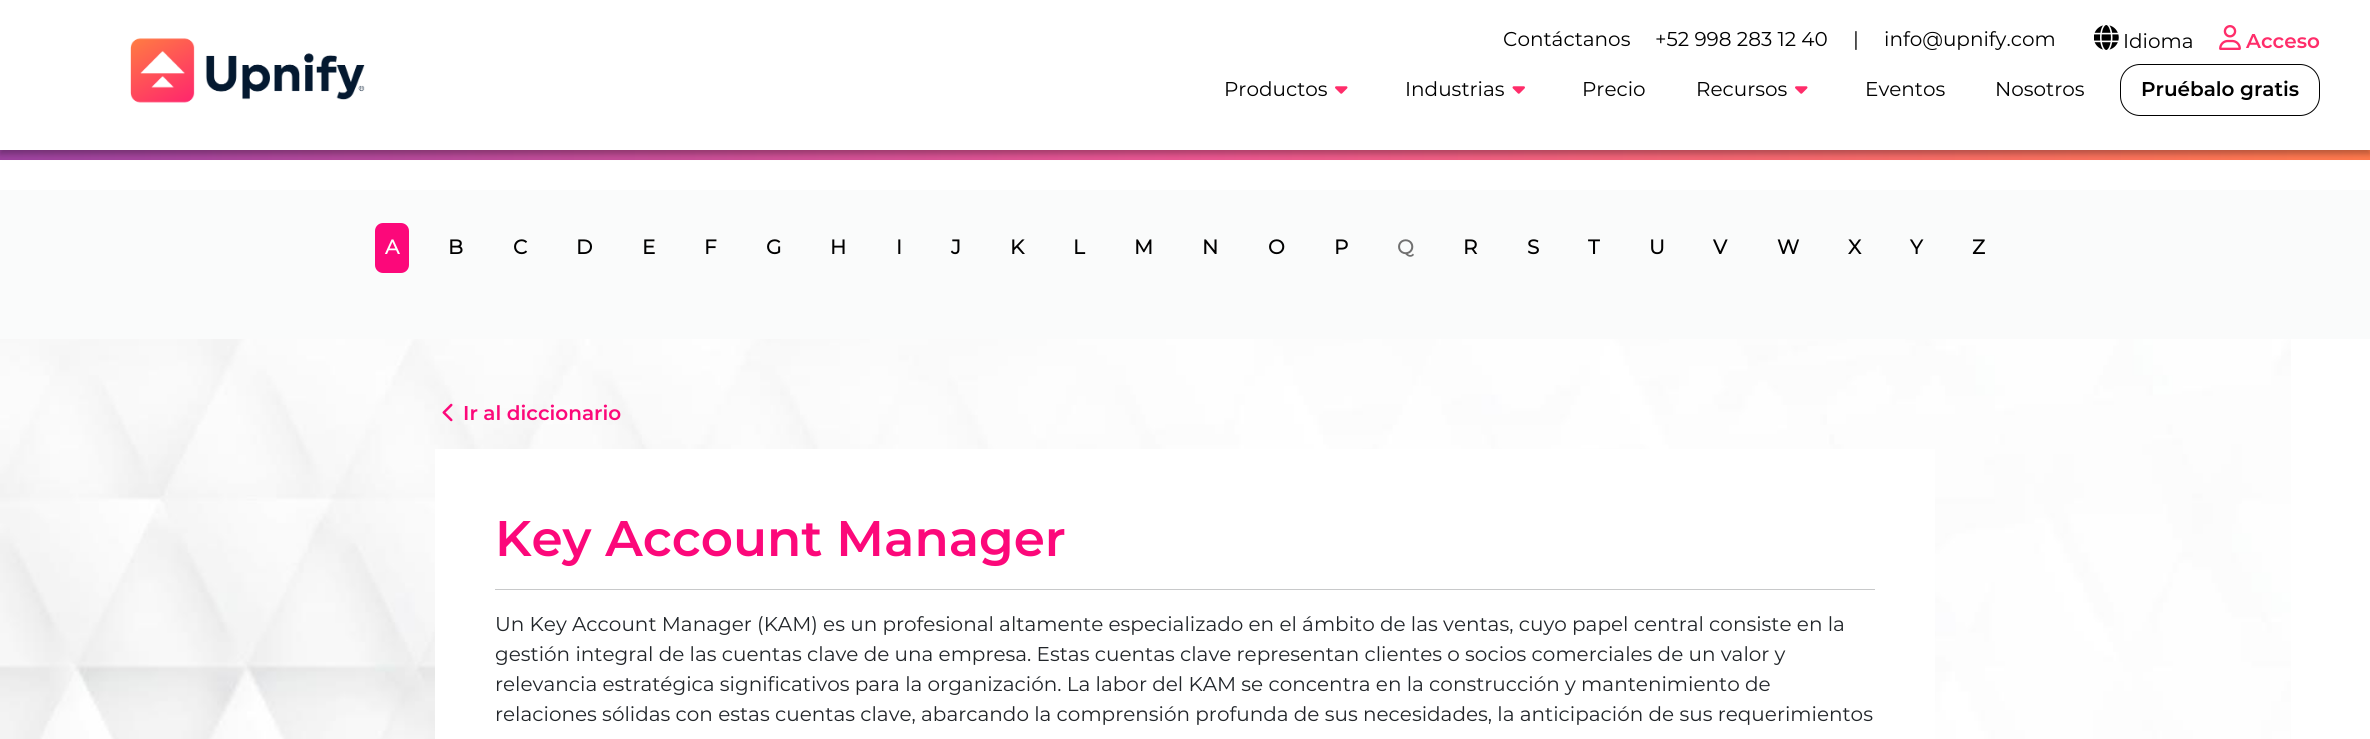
import math
import cairo



def rounded_rect(context, x, y, w, h, r):
    context.new_sub_path()
    for i, (u, v) in enumerate([(x + w - r, y + h - r), (x + r, y + h - r), (x + r, y + r), (x + w - r, y + r)]):
        context.arc(u, v, r, i * math.pi / 2, (i + 1) * math.pi / 2)
    context.close_path()


def draw_shadow(context, x, y, w, h, r, blur, alpha):
    context.push_group_with_content(cairo.Content.ALPHA)
    context.set_operator(cairo.Operator.SOURCE)
    for i in range(15, -16, -2):
        e = blur * i / 6
        if min(w, h) + 2 * e > 0:
            context.set_source_rgba(0, 0, 0, alpha * math.erfc((i - 1) / 8.5) / 2)
            rounded_rect(context, x - e, y - e, w + 2 * e, h + 2 * e, max(0, min(r + e + blur * .6, min(w, h) / 2 + e)))
            context.fill()
    context.mask(context.pop_group())


def draw_image(context, path, x, y, w, h):
    context.save()
    context.set_source_surface(cairo.ImageSurface.create_from_png(path), x, y)
    context.rectangle(x, y, w, h)
    context.fill()
    context.restore()


def draw(context):
    context.set_source_rgb(1, 1, 1)
    context.paint()
    draw_image(context, "images/1.png", 0, 339, 2291, 400)
    gradient = cairo.LinearGradient(0, 80, 2370, 80)
    gradient.add_color_stop_rgba(0, 155 / 255, 66 / 255, 158 / 255, 1)
    gradient.add_color_stop_rgba(0.51, 234 / 255, 86 / 255, 144 / 255, 1)
    gradient.add_color_stop_rgba(1, 1, 121 / 255, 76 / 255, 1)
    context.set_source(gradient)
    context.rectangle(0, 150, 2370, 10)
    context.fill()
    context.set_source_rgb(0, 0, 0)
    draw_shadow(context, 0, 4, 2370, 150, 0, 3, 0.27)
    context.set_source_rgb(1, 1, 1)
    context.rectangle(0, 0, 2370, 150)
    context.fill()
    draw_image(context, "images/2.png", 2094, 25, 25, 25)
    draw_image(context, "images/3.png", 2219, 25, 22, 25)
    draw_image(context, "images/4.png", 130, 38, 235, 65)
    draw_image(context, "images/5.png", 1335, 86, 13, 8)
    draw_image(context, "images/6.png", 1512, 86, 13, 8)
    draw_image(context, "images/5.png", 1795, 86, 13, 8)
    rounded_rect(context, 2120.5, 64.5, 199, 51, 19.5)
    context.set_source_rgb(0, 0, 0)
    context.set_line_width(1)
    context.stroke()
    context.set_source_rgb(250 / 255, 251 / 255, 251 / 255)
    context.rectangle(0, 190, 2370, 149)
    context.fill()
    context.set_source_rgb(252 / 255, 8 / 255, 122 / 255)
    rounded_rect(context, 375, 223, 34, 50, 8)
    context.fill()
    draw_image(context, "images/7.png", 442, 403, 11, 19)
    context.set_source_rgb(1, 1, 1)
    context.rectangle(435, 449, 1500, 290)
    context.fill()
    context.set_source_rgb(200 / 255, 201 / 255, 202 / 255)
    context.rectangle(495, 589, 1380, 1)
    context.fill()
    context.select_font_face("Montserrat")
    context.set_font_size(20)
    context.set_source_rgb(0, 0, 0)
    context.move_to(1503, 46)
    context.show_text("Contáctanos")
    context.move_to(1655, 46)
    context.show_text("+52 998 283 12 40")
    context.move_to(1853, 46)
    context.show_text("|")
    context.move_to(1884, 46)
    context.show_text("info@upnify.com")
    context.move_to(2123, 48)
    context.show_text("Idioma")
    context.select_font_face("Montserrat SemiBold")
    context.set_source_rgb(1, 45 / 255, 106 / 255)
    context.move_to(2246, 48)
    context.show_text("Acceso")
    context.select_font_face("Montserrat")
    context.set_source_rgb(0, 0, 0)
    context.move_to(1224, 96)
    context.show_text("Productos")
    context.move_to(1405, 96)
    context.show_text("Industrias")
    context.move_to(1582, 96)
    context.show_text("Precio")
    context.move_to(1696, 96)
    context.show_text("Recursos")
    context.move_to(1865, 96)
    context.show_text("Eventos")
    context.move_to(1995, 96)
    context.show_text("Nosotros")
    context.select_font_face("Montserrat SemiBold")
    context.move_to(2141, 96)
    context.show_text("Pruébalo gratis")
    context.select_font_face("Montserrat", cairo.FontSlant.NORMAL, cairo.FontWeight.BOLD)
    context.set_source_rgb(1, 1, 1)
    context.move_to(385, 254)
    context.show_text("A")
    context.set_source_rgb(0, 0, 0)
    context.move_to(448, 254)
    context.show_text("B")
    context.move_to(513, 254)
    context.show_text("C")
    context.move_to(576, 254)
    context.show_text("D")
    context.move_to(642, 254)
    context.show_text("E")
    context.move_to(704, 254)
    context.show_text("F")
    context.move_to(766, 254)
    context.show_text("G")
    context.move_to(830, 254)
    context.show_text("H")
    context.move_to(896, 254)
    context.show_text("I")
    context.move_to(951, 254)
    context.show_text("J")
    context.move_to(1010, 254)
    context.show_text("K")
    context.move_to(1073, 254)
    context.show_text("L")
    context.move_to(1134, 254)
    context.show_text("M")
    context.move_to(1202, 254)
    context.show_text("N")
    context.move_to(1268, 254)
    context.show_text("O")
    context.move_to(1334, 254)
    context.show_text("P")
    context.set_source_rgb(112 / 255, 112 / 255, 112 / 255)
    context.move_to(1397, 254)
    context.show_text("Q")
    context.set_source_rgb(0, 0, 0)
    context.move_to(1463, 254)
    context.show_text("R")
    context.move_to(1527, 254)
    context.show_text("S")
    context.move_to(1588, 254)
    context.show_text("T")
    context.move_to(1649, 254)
    context.show_text("U")
    context.move_to(1713, 254)
    context.show_text("V")
    context.move_to(1777, 254)
    context.show_text("W")
    context.move_to(1848, 254)
    context.show_text("X")
    context.move_to(1910, 254)
    context.show_text("Y")
    context.move_to(1972, 254)
    context.show_text("Z")
    context.select_font_face("Montserrat SemiBold")
    context.set_source_rgb(252 / 255, 8 / 255, 122 / 255)
    context.move_to(463, 420)
    context.show_text("Ir al diccionario")
    context.set_font_size(50)
    context.move_to(495, 556)
    context.show_text("Key Account Manager")
    context.select_font_face("Montserrat")
    context.set_font_size(20)
    context.set_source_rgb(33 / 255, 37 / 255, 41 / 255)
    context.move_to(495, 631)
    context.show_text("Un Key Account Manager (KAM) es un profesional altamente especializado en el ámbito de las ventas, cuyo papel central consiste en la")
    context.move_to(495, 661)
    context.show_text("gestión integral de las cuentas clave de una empresa. Estas cuentas clave representan clientes o socios comerciales de un valor y")
    context.move_to(495, 691)
    context.show_text("relevancia estratégica significativos para la organización. La labor del KAM se concentra en la construcción y mantenimiento de")
    context.move_to(495, 721)
    context.show_text("relaciones sólidas con estas cuentas clave, abarcando la comprensión profunda de sus necesidades, la anticipación de sus requerimientos")


surface = cairo.ImageSurface(cairo.Format.RGB24, 2370, 739)
context = cairo.Context(surface)
options = cairo.FontOptions()
options.set_hint_metrics(cairo.HintMetrics.OFF)
options.set_hint_style(cairo.HintStyle.NONE)
context.set_font_options(options)
context.set_miter_limit(4)
draw(context)
surface.write_to_png("out.png")
